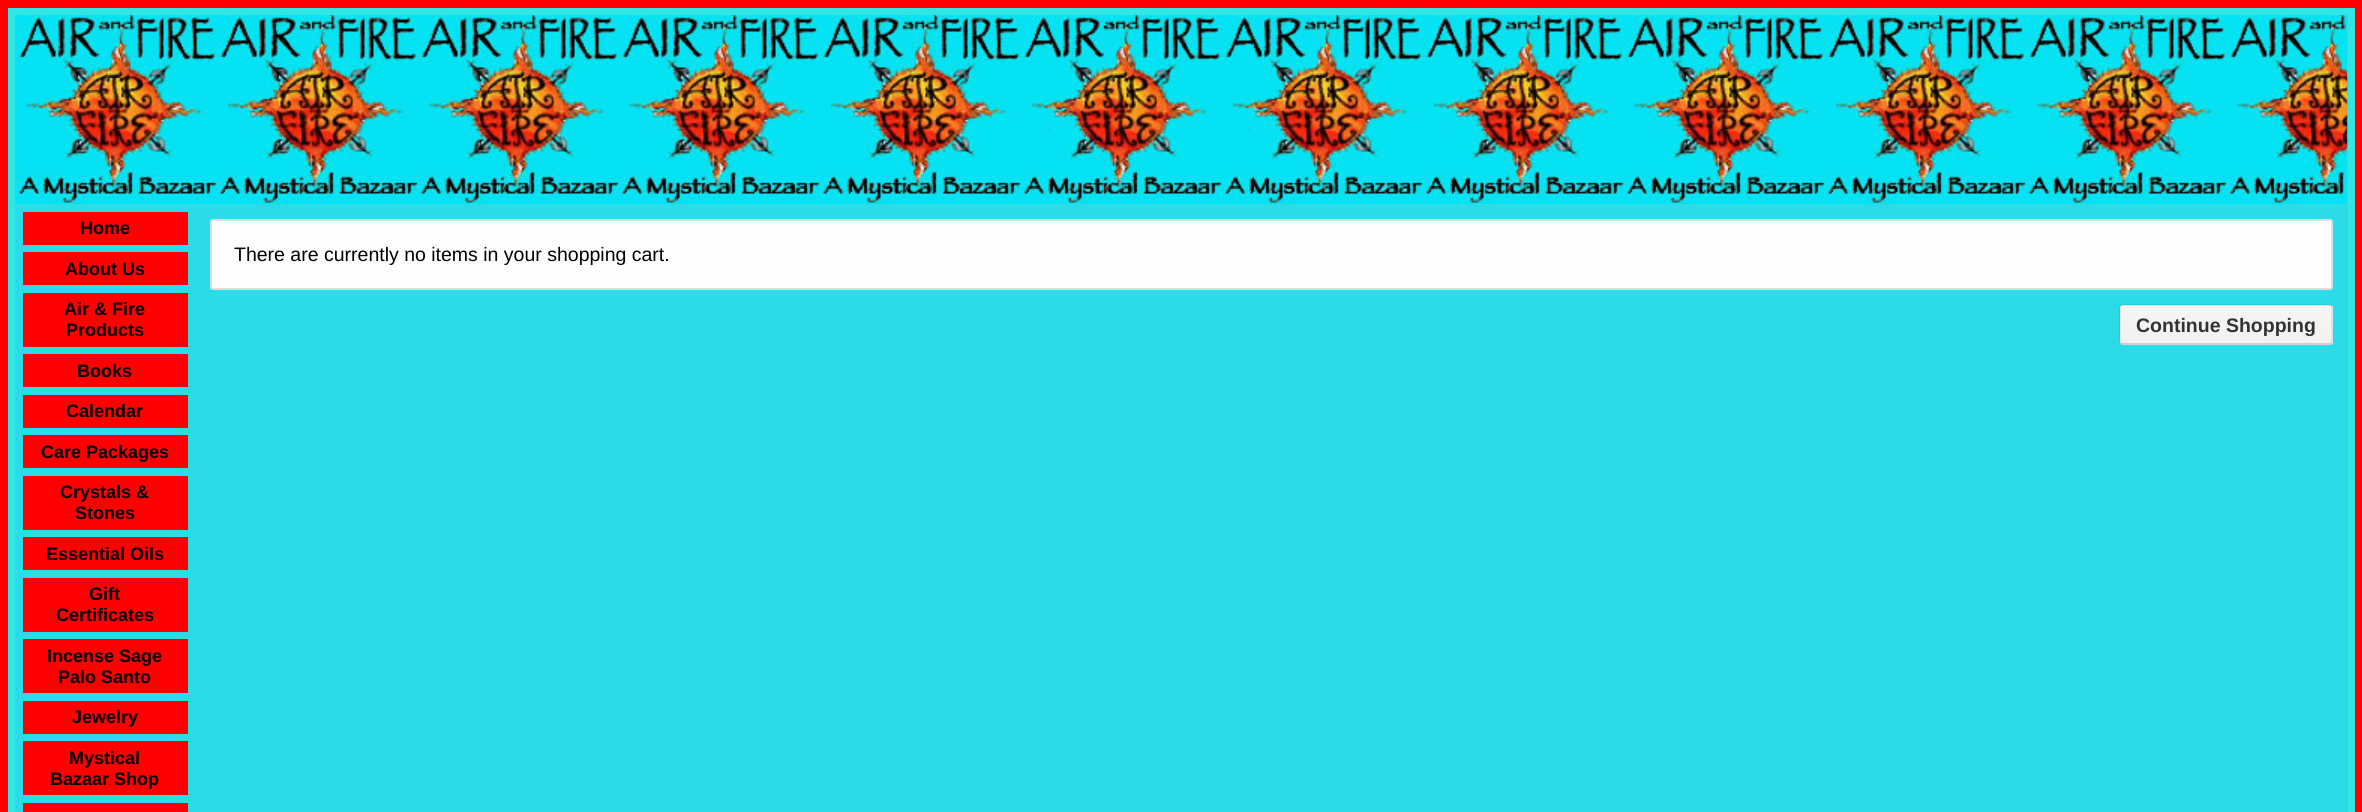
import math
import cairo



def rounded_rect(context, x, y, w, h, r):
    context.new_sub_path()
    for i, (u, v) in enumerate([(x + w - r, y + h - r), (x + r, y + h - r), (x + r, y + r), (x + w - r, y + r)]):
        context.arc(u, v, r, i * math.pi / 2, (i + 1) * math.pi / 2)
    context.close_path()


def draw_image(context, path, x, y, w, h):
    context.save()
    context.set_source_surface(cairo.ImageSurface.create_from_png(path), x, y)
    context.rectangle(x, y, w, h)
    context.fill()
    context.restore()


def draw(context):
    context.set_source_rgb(1, 0, 0)
    context.paint()
    context.set_source_rgb(51 / 255, 230 / 255, 230 / 255)
    context.rectangle(8, 8, 2347, 804)
    context.fill()
    draw_image(context, "images/1.png", 15, 15, 2333, 189)
    context.set_source_rgb(42 / 255, 219 / 255, 232 / 255)
    context.rectangle(15, 204, 2333, 608)
    context.fill()
    context.set_source_rgb(1, 0, 0)
    context.rectangle(23, 212, 165, 33)
    context.fill()
    context.rectangle(23, 252, 165, 33)
    context.fill()
    context.rectangle(23, 293, 165, 54)
    context.fill()
    context.rectangle(23, 354, 165, 33)
    context.fill()
    context.rectangle(23, 395, 165, 33)
    context.fill()
    context.rectangle(23, 435, 165, 33)
    context.fill()
    context.rectangle(23, 476, 165, 54)
    context.fill()
    context.rectangle(23, 537, 165, 33)
    context.fill()
    context.rectangle(23, 578, 165, 54)
    context.fill()
    context.rectangle(23, 639, 165, 54)
    context.fill()
    context.rectangle(23, 701, 165, 33)
    context.fill()
    context.rectangle(23, 741, 165, 54)
    context.fill()
    context.rectangle(23, 803, 165, 9)
    context.fill()
    context.set_source_rgb(254 / 255, 254 / 255, 254 / 255)
    rounded_rect(context, 211, 220, 2121, 69, 2)
    context.fill_preserve()
    context.set_source_rgb(221 / 255, 221 / 255, 221 / 255)
    context.stroke()
    context.set_source_rgb(243 / 255, 243 / 255, 243 / 255)
    rounded_rect(context, 2120, 305, 213, 40, 3)
    context.fill()
    context.save()
    rounded_rect(context, 2120, 305, 213, 40, 3)
    context.clip()
    gradient = cairo.LinearGradient(2226, 306, 2226, 344)
    gradient.add_color_stop_rgba(0, 245 / 255, 245 / 255, 245 / 255, 1)
    gradient.add_color_stop_rgba(1, 241 / 255, 241 / 255, 241 / 255, 1)
    context.set_source(gradient)
    context.rectangle(2120, 306, 213, 38)
    context.fill()
    context.restore()
    context.new_path()
    context.move_to(2331, 343.5)
    context.line_to(2329.5, 344)
    context.line_to(2122.5, 344)
    context.line_to(2121, 343.5)
    context.set_source_rgba(0, 0, 0, 0.2)
    context.set_line_width(1.5)
    context.stroke()
    context.new_path()
    context.move_to(2121, 343.5)
    context.curve_to(2119, 342, 2120, 327.5, 2120, 325)
    context.line_to(2120, 313)
    context.curve_to(2120, 312, 2119, 305.5, 2122.5, 305)
    context.line_to(2329.5, 305)
    context.curve_to(2333, 305.5, 2332, 312, 2332, 313)
    context.line_to(2332, 325)
    context.curve_to(2332, 327.5, 2333, 342, 2331, 343.5)
    context.set_source_rgba(0, 0, 0, 0.1)
    context.stroke()
    context.select_font_face("Liberation Sans", cairo.FontSlant.NORMAL, cairo.FontWeight.BOLD)
    context.set_font_size(18)
    context.set_source_rgb(0, 0, 0)
    context.move_to(80, 234)
    context.show_text("Home")
    context.move_to(65, 275)
    context.show_text("About Us")
    context.move_to(64, 315)
    context.show_text("Air & Fire")
    context.move_to(66, 336)
    context.show_text("Products")
    context.move_to(77, 377)
    context.show_text("Books")
    context.move_to(66, 417)
    context.show_text("Calendar")
    context.move_to(41, 458)
    context.show_text("Care Packages")
    context.move_to(60, 498)
    context.show_text("Crystals &")
    context.move_to(75, 519)
    context.show_text("Stones")
    context.move_to(46, 560)
    context.show_text("Essential Oils")
    context.move_to(89, 600)
    context.show_text("Gift")
    context.move_to(56, 621)
    context.show_text("Certificates")
    context.move_to(47, 662)
    context.show_text("Incense Sage")
    context.move_to(58, 683)
    context.show_text("Palo Santo")
    context.move_to(72, 723)
    context.show_text("Jewelry")
    context.move_to(69, 764)
    context.show_text("Mystical")
    context.move_to(50, 785)
    context.show_text("Bazaar Shop")
    context.select_font_face("Liberation Sans")
    context.set_font_size(19.5)
    context.move_to(234, 261)
    context.show_text("There are currently no items in your shopping cart.")
    context.select_font_face("Liberation Sans", cairo.FontSlant.NORMAL, cairo.FontWeight.BOLD)
    context.set_source_rgb(51 / 255, 51 / 255, 51 / 255)
    context.move_to(2136, 332)
    context.show_text("Continue Shopping")


surface = cairo.ImageSurface(cairo.Format.RGB24, 2362, 812)
context = cairo.Context(surface)
options = cairo.FontOptions()
options.set_hint_metrics(cairo.HintMetrics.OFF)
options.set_hint_style(cairo.HintStyle.NONE)
context.set_font_options(options)
context.set_miter_limit(4)
draw(context)
surface.write_to_png("out.png")
